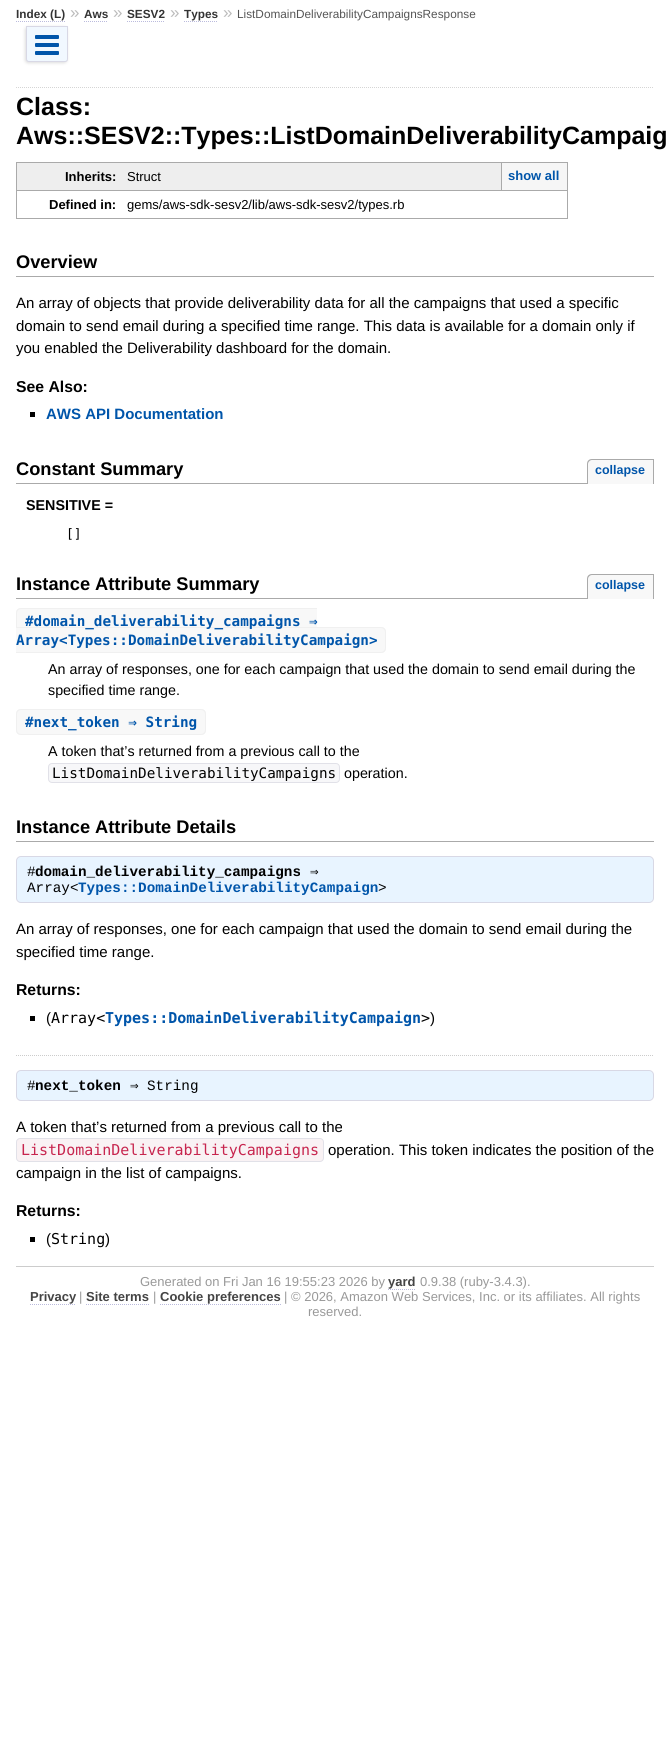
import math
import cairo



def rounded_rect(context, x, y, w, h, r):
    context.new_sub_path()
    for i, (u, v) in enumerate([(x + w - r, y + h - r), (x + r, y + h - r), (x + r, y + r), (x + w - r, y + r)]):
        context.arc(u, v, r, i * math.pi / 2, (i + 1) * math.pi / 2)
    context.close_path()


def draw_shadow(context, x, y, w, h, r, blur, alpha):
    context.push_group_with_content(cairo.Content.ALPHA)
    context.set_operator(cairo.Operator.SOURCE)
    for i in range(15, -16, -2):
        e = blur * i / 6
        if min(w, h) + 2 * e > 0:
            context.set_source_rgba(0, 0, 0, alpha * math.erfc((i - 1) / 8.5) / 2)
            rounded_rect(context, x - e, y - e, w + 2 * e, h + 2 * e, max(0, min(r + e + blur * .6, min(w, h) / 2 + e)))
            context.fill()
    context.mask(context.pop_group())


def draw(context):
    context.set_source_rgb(1, 1, 1)
    context.paint()
    context.set_source_rgb(221 / 255, 221 / 255, 221 / 255)
    draw_shadow(context, 25, 27, 42, 36, 3, 1.5, 1)
    context.new_path()
    context.move_to(16, 21.5)
    context.line_to(65, 21.5)
    context.set_source_rgb(187 / 255, 187 / 255, 221 / 255)
    context.set_line_width(1)
    context.set_dash([1, 1])
    context.stroke()
    context.new_path()
    context.move_to(84, 21.5)
    context.line_to(108, 21.5)
    context.stroke()
    context.new_path()
    context.move_to(127, 21.5)
    context.line_to(165, 21.5)
    context.stroke()
    context.new_path()
    context.move_to(184, 21.5)
    context.line_to(218, 21.5)
    context.stroke()
    context.set_source_rgb(241 / 255, 248 / 255, 1)
    context.new_path()
    context.move_to(26.5, 26.5)
    context.line_to(67.5, 26.5)
    context.line_to(67.5, 59)
    context.curve_to(67.5, 60.5, 66.5, 61.5, 65, 61.5)
    context.line_to(29, 61.5)
    context.curve_to(27.5, 61.5, 26.5, 60.5, 26.5, 59)
    context.close_path()
    context.fill_preserve()
    context.set_source_rgb(216 / 255, 216 / 255, 229 / 255)
    context.set_dash([])
    context.stroke()
    context.set_source_rgb(0, 85 / 255, 170 / 255)
    rounded_rect(context, 35, 35, 24, 4, 1)
    context.fill()
    rounded_rect(context, 35, 43, 24, 4, 1)
    context.fill()
    rounded_rect(context, 35, 51, 24, 4, 1)
    context.fill()
    context.new_path()
    context.move_to(16, 87.5)
    context.line_to(654, 87.5)
    context.set_source_rgb(213 / 255, 213 / 255, 213 / 255)
    context.set_dash([1, 1])
    context.stroke()
    context.set_source_rgb(238 / 255, 238 / 255, 238 / 255)
    context.rectangle(17, 163, 484, 27)
    context.fill()
    context.set_source_rgb(170 / 255, 170 / 255, 170 / 255)
    context.rectangle(16, 162, 552, 1)
    context.fill()
    context.rectangle(16, 162, 1, 28)
    context.fill()
    context.rectangle(16, 190, 552, 1)
    context.fill()
    context.rectangle(567, 162, 1, 57)
    context.fill()
    context.set_source_rgb(246 / 255, 246 / 255, 246 / 255)
    context.rectangle(502, 163, 65, 27)
    context.fill()
    context.set_source_rgb(170 / 255, 170 / 255, 170 / 255)
    context.rectangle(501, 163, 1, 27)
    context.fill()
    context.rectangle(16, 218, 111, 1)
    context.fill()
    context.rectangle(16, 190, 1, 29)
    context.fill()
    context.rectangle(127, 218, 441, 1)
    context.fill()
    context.rectangle(16, 276, 638, 1)
    context.fill()
    context.set_source_rgb(0, 0, 0)
    context.rectangle(30, 412, 5, 5)
    context.fill()
    context.set_source_rgb(170 / 255, 170 / 255, 170 / 255)
    context.rectangle(16, 483, 571, 1)
    context.fill()
    context.set_source_rgb(248 / 255, 248 / 255, 248 / 255)
    context.new_path()
    context.move_to(592, 459)
    context.line_to(654, 459)
    context.line_to(654, 484)
    context.line_to(587, 484)
    context.line_to(587, 464)
    context.curve_to(587, 461, 589, 459, 592, 459)
    context.close_path()
    context.fill()
    context.set_source_rgb(170 / 255, 170 / 255, 170 / 255)
    context.set_fill_rule(cairo.FillRule.EVEN_ODD)
    context.new_path()
    context.move_to(592, 459)
    context.line_to(654, 459)
    context.line_to(654, 484)
    context.line_to(587, 484)
    context.line_to(587, 464)
    context.curve_to(587, 461, 589, 459, 592, 459)
    context.close_path()
    context.move_to(592, 460)
    context.line_to(653, 460)
    context.line_to(653, 484)
    context.line_to(588, 484)
    context.line_to(588, 464)
    context.curve_to(588, 462, 590, 460, 592, 460)
    context.close_path()
    context.fill()
    context.rectangle(16, 598, 571, 1)
    context.fill()
    context.set_source_rgb(248 / 255, 248 / 255, 248 / 255)
    context.new_path()
    context.move_to(592, 574)
    context.line_to(654, 574)
    context.line_to(654, 599)
    context.line_to(587, 599)
    context.line_to(587, 579)
    context.curve_to(587, 576, 589, 574, 592, 574)
    context.close_path()
    context.fill()
    context.set_source_rgb(170 / 255, 170 / 255, 170 / 255)
    context.new_path()
    context.move_to(592, 574)
    context.line_to(654, 574)
    context.line_to(654, 599)
    context.line_to(587, 599)
    context.line_to(587, 579)
    context.curve_to(587, 576, 589, 574, 592, 574)
    context.close_path()
    context.move_to(592, 575)
    context.line_to(653, 575)
    context.line_to(653, 599)
    context.line_to(588, 599)
    context.line_to(588, 579)
    context.curve_to(588, 577, 590, 575, 592, 575)
    context.close_path()
    context.fill()
    context.set_source_rgb(248 / 255, 248 / 255, 248 / 255)
    context.new_path()
    context.move_to(21, 608)
    context.line_to(33, 608)
    context.line_to(33, 634)
    context.line_to(21, 634)
    context.curve_to(18, 634, 16, 632, 16, 629)
    context.line_to(16, 613)
    context.curve_to(16, 610, 18, 608, 21, 608)
    context.close_path()
    context.fill()
    context.set_source_rgb(240 / 255, 240 / 255, 240 / 255)
    context.new_path()
    context.move_to(21, 608)
    context.line_to(33, 608)
    context.line_to(33, 634)
    context.line_to(21, 634)
    context.curve_to(18, 634, 16, 632, 16, 629)
    context.line_to(16, 613)
    context.curve_to(16, 610, 18, 608, 21, 608)
    context.close_path()
    context.move_to(21, 609)
    context.line_to(33, 609)
    context.line_to(33, 633)
    context.line_to(21, 633)
    context.curve_to(19, 633, 17, 631, 17, 629)
    context.line_to(17, 613)
    context.curve_to(17, 611, 19, 609, 21, 609)
    context.close_path()
    context.fill()
    context.set_source_rgb(248 / 255, 248 / 255, 248 / 255)
    context.rectangle(33, 609, 284, 18)
    context.fill()
    context.set_source_rgb(240 / 255, 240 / 255, 240 / 255)
    context.rectangle(33, 608, 284, 1)
    context.fill()
    context.set_source_rgb(248 / 255, 248 / 255, 248 / 255)
    context.new_path()
    context.move_to(16, 627)
    context.line_to(381, 627)
    context.curve_to(384, 627, 386, 629, 386, 632)
    context.line_to(386, 648)
    context.curve_to(386, 651, 384, 653, 381, 653)
    context.line_to(16, 653)
    context.close_path()
    context.fill()
    context.set_source_rgb(240 / 255, 240 / 255, 240 / 255)
    context.new_path()
    context.move_to(16, 627)
    context.line_to(381, 627)
    context.curve_to(384, 627, 386, 629, 386, 632)
    context.line_to(386, 648)
    context.curve_to(386, 651, 384, 653, 381, 653)
    context.line_to(16, 653)
    context.close_path()
    context.move_to(16, 628)
    context.line_to(381, 628)
    context.curve_to(383, 628, 385, 630, 385, 632)
    context.line_to(385, 648)
    context.curve_to(385, 650, 383, 652, 381, 652)
    context.line_to(16, 652)
    context.close_path()
    context.fill()
    context.set_source_rgb(248 / 255, 248 / 255, 248 / 255)
    context.new_path()
    context.move_to(21, 709)
    context.line_to(33, 709)
    context.line_to(33, 735)
    context.line_to(21, 735)
    context.curve_to(18, 735, 16, 733, 16, 730)
    context.line_to(16, 714)
    context.curve_to(16, 711, 18, 709, 21, 709)
    context.close_path()
    context.fill()
    context.set_source_rgb(240 / 255, 240 / 255, 240 / 255)
    context.new_path()
    context.move_to(21, 709)
    context.line_to(33, 709)
    context.line_to(33, 735)
    context.line_to(21, 735)
    context.curve_to(18, 735, 16, 733, 16, 730)
    context.line_to(16, 714)
    context.curve_to(16, 711, 18, 709, 21, 709)
    context.close_path()
    context.move_to(21, 710)
    context.line_to(33, 710)
    context.line_to(33, 734)
    context.line_to(21, 734)
    context.curve_to(19, 734, 17, 732, 17, 730)
    context.line_to(17, 714)
    context.curve_to(17, 712, 19, 710, 21, 710)
    context.close_path()
    context.fill()
    context.set_source_rgb(248 / 255, 248 / 255, 248 / 255)
    context.rectangle(33, 710, 86, 24)
    context.fill()
    context.set_source_rgb(240 / 255, 240 / 255, 240 / 255)
    context.rectangle(33, 709, 86, 1)
    context.fill()
    context.rectangle(33, 734, 86, 1)
    context.fill()
    context.set_source_rgb(248 / 255, 248 / 255, 248 / 255)
    context.new_path()
    context.move_to(119, 709)
    context.line_to(201, 709)
    context.curve_to(204, 709, 206, 711, 206, 714)
    context.line_to(206, 730)
    context.curve_to(206, 733, 204, 735, 201, 735)
    context.line_to(119, 735)
    context.close_path()
    context.fill()
    context.set_source_rgb(240 / 255, 240 / 255, 240 / 255)
    context.new_path()
    context.move_to(119, 709)
    context.line_to(201, 709)
    context.curve_to(204, 709, 206, 711, 206, 714)
    context.line_to(206, 730)
    context.curve_to(206, 733, 204, 735, 201, 735)
    context.line_to(119, 735)
    context.close_path()
    context.move_to(119, 710)
    context.line_to(201, 710)
    context.curve_to(203, 710, 205, 712, 205, 714)
    context.line_to(205, 730)
    context.curve_to(205, 732, 203, 734, 201, 734)
    context.line_to(119, 734)
    context.close_path()
    context.fill()
    context.set_source_rgb(247 / 255, 247 / 255, 249 / 255)
    rounded_rect(context, 48.5, 763.5, 291, 19, 3.5)
    context.fill_preserve()
    context.set_source_rgb(225 / 255, 225 / 255, 232 / 255)
    context.set_dash([])
    context.stroke()
    context.set_source_rgb(170 / 255, 170 / 255, 170 / 255)
    context.rectangle(16, 841, 638, 1)
    context.fill()
    context.set_source_rgb(232 / 255, 244 / 255, 1)
    rounded_rect(context, 16.5, 856.5, 637, 46, 4.5)
    context.fill_preserve()
    context.set_source_rgb(216 / 255, 216 / 255, 229 / 255)
    context.stroke()
    context.set_source_rgb(0, 0, 0)
    context.rectangle(30, 1016, 5, 5)
    context.fill()
    context.new_path()
    context.move_to(16, 1055.5)
    context.line_to(654, 1055.5)
    context.set_source_rgb(204 / 255, 204 / 255, 204 / 255)
    context.set_dash([1, 1])
    context.stroke()
    context.set_source_rgb(232 / 255, 244 / 255, 1)
    rounded_rect(context, 16.5, 1070.5, 637, 30, 4.5)
    context.fill_preserve()
    context.set_source_rgb(216 / 255, 216 / 255, 229 / 255)
    context.set_dash([])
    context.stroke()
    context.set_source_rgb(249 / 255, 242 / 255, 244 / 255)
    rounded_rect(context, 16.5, 1138.5, 307, 23, 3.5)
    context.fill_preserve()
    context.set_source_rgb(225 / 255, 225 / 255, 232 / 255)
    context.stroke()
    context.set_source_rgb(0, 0, 0)
    context.rectangle(30, 1237, 5, 5)
    context.fill()
    context.set_source_rgb(204 / 255, 204 / 255, 204 / 255)
    context.rectangle(16, 1266, 638, 1)
    context.fill()
    context.new_path()
    context.move_to(388, 1289.5)
    context.line_to(416, 1289.5)
    context.set_source_rgb(187 / 255, 187 / 255, 221 / 255)
    context.set_dash([1, 1])
    context.stroke()
    context.new_path()
    context.move_to(30, 1304.5)
    context.line_to(76, 1304.5)
    context.stroke()
    context.new_path()
    context.move_to(86, 1304.5)
    context.line_to(149, 1304.5)
    context.stroke()
    context.new_path()
    context.move_to(160, 1304.5)
    context.line_to(281, 1304.5)
    context.stroke()
    context.select_font_face("Liberation Sans", cairo.FontSlant.NORMAL, cairo.FontWeight.BOLD)
    context.set_font_size(11.8)
    context.set_source_rgb(51 / 255, 51 / 255, 51 / 255)
    context.move_to(16, 18)
    context.show_text("Index (L)")
    context.select_font_face("Liberation Sans")
    context.set_font_size(17)
    context.set_source_rgb(187 / 255, 187 / 255, 187 / 255)
    context.move_to(70, 18)
    context.show_text("»")
    context.select_font_face("Liberation Sans", cairo.FontSlant.NORMAL, cairo.FontWeight.BOLD)
    context.set_font_size(11.8)
    context.set_source_rgb(51 / 255, 51 / 255, 51 / 255)
    context.move_to(84, 18)
    context.show_text("Aws")
    context.select_font_face("Liberation Sans")
    context.set_font_size(17)
    context.set_source_rgb(187 / 255, 187 / 255, 187 / 255)
    context.move_to(113, 18)
    context.show_text("»")
    context.select_font_face("Liberation Sans", cairo.FontSlant.NORMAL, cairo.FontWeight.BOLD)
    context.set_font_size(11.8)
    context.set_source_rgb(51 / 255, 51 / 255, 51 / 255)
    context.move_to(127, 18)
    context.show_text("SESV2")
    context.select_font_face("Liberation Sans")
    context.set_font_size(17)
    context.set_source_rgb(187 / 255, 187 / 255, 187 / 255)
    context.move_to(170, 18)
    context.show_text("»")
    context.select_font_face("Liberation Sans", cairo.FontSlant.NORMAL, cairo.FontWeight.BOLD)
    context.set_font_size(11.8)
    context.set_source_rgb(51 / 255, 51 / 255, 51 / 255)
    context.move_to(184, 18)
    context.show_text("Types")
    context.select_font_face("Liberation Sans")
    context.set_font_size(17)
    context.set_source_rgb(187 / 255, 187 / 255, 187 / 255)
    context.move_to(223, 18)
    context.show_text("»")
    context.set_font_size(11.8)
    context.set_source_rgb(85 / 255, 85 / 255, 85 / 255)
    context.move_to(237, 18)
    context.show_text("ListDomainDeliverabilityCampaignsResponse")
    context.select_font_face("Liberation Sans", cairo.FontSlant.NORMAL, cairo.FontWeight.BOLD)
    context.set_font_size(25)
    context.set_source_rgb(0, 0, 0)
    context.move_to(16, 115)
    context.show_text("Class:")
    context.move_to(16, 144)
    context.show_text("Aws::SESV2::Types::ListDomainDeliverabilityCampaig")
    context.set_font_size(13)
    context.move_to(65, 181)
    context.show_text("Inherits:")
    context.select_font_face("Liberation Sans")
    context.move_to(127, 181)
    context.show_text("Struct")
    context.select_font_face("Liberation Sans", cairo.FontSlant.NORMAL, cairo.FontWeight.BOLD)
    context.set_source_rgb(0, 85 / 255, 170 / 255)
    context.move_to(508, 180)
    context.show_text("show all")
    context.set_source_rgb(0, 0, 0)
    context.move_to(49, 209)
    context.show_text("Defined in:")
    context.select_font_face("Liberation Sans")
    context.move_to(127, 209)
    context.show_text("gems/aws-sdk-sesv2/lib/aws-sdk-sesv2/types.rb")
    context.select_font_face("Liberation Sans", cairo.FontSlant.NORMAL, cairo.FontWeight.BOLD)
    context.set_font_size(18.25)
    context.move_to(16, 268)
    context.show_text("Overview")
    context.select_font_face("Liberation Sans")
    context.set_font_size(15)
    context.move_to(16, 308)
    context.show_text("An array of objects that provide deliverability data for all the campaigns that used a specific")
    context.move_to(16, 331)
    context.show_text("domain to send email during a specified time range. This data is available for a domain only if")
    context.move_to(16, 353)
    context.show_text("you enabled the Deliverability dashboard for the domain.")
    context.select_font_face("Liberation Sans", cairo.FontSlant.NORMAL, cairo.FontWeight.BOLD)
    context.set_font_size(15.75)
    context.move_to(16, 392)
    context.show_text("See Also:")
    context.set_font_size(15)
    context.set_source_rgb(0, 85 / 255, 170 / 255)
    context.move_to(46, 419)
    context.show_text("AWS API Documentation")
    context.set_font_size(18.25)
    context.set_source_rgb(0, 0, 0)
    context.move_to(16, 475)
    context.show_text("Constant Summary")
    context.set_font_size(12.5)
    context.set_source_rgb(0, 85 / 255, 170 / 255)
    context.move_to(595, 474)
    context.show_text("collapse")
    context.set_font_size(14.3)
    context.set_source_rgb(0, 0, 0)
    context.move_to(26, 510)
    context.show_text("SENSITIVE =")
    context.select_font_face("DejaVu Sans Mono")
    context.set_font_size(13)
    context.move_to(66, 538)
    context.show_text("[]")
    context.select_font_face("Liberation Sans", cairo.FontSlant.NORMAL, cairo.FontWeight.BOLD)
    context.set_font_size(18.25)
    context.move_to(16, 590)
    context.show_text("Instance Attribute Summary")
    context.set_font_size(12.5)
    context.set_source_rgb(0, 85 / 255, 170 / 255)
    context.move_to(595, 589)
    context.show_text("collapse")
    context.select_font_face("DejaVu Sans Mono", cairo.FontSlant.NORMAL, cairo.FontWeight.BOLD)
    context.set_font_size(14.3)
    context.move_to(25, 626)
    context.show_text("#domain_deliverability_campaigns ⇒")
    context.move_to(16, 645)
    context.show_text("Array<Types::DomainDeliverabilityCampaign>")
    context.select_font_face("Liberation Sans")
    context.set_source_rgb(0, 0, 0)
    context.move_to(48, 674)
    context.show_text("An array of responses, one for each campaign that used the domain to send email during the")
    context.move_to(48, 695)
    context.show_text("specified time range.")
    context.select_font_face("DejaVu Sans Mono", cairo.FontSlant.NORMAL, cairo.FontWeight.BOLD)
    context.set_source_rgb(0, 85 / 255, 170 / 255)
    context.move_to(25, 727)
    context.show_text("#next_token ⇒ String")
    context.select_font_face("Liberation Sans")
    context.set_source_rgb(0, 0, 0)
    context.move_to(48, 756)
    context.show_text("A token that’s returned from a previous call to the")
    context.select_font_face("DejaVu Sans Mono")
    context.move_to(52, 778)
    context.show_text("ListDomainDeliverabilityCampaigns")
    context.select_font_face("Liberation Sans")
    context.move_to(344, 778)
    context.show_text("operation.")
    context.select_font_face("Liberation Sans", cairo.FontSlant.NORMAL, cairo.FontWeight.BOLD)
    context.set_font_size(18.25)
    context.move_to(16, 833)
    context.show_text("Instance Attribute Details")
    context.select_font_face("Liberation Mono")
    context.set_font_size(14.3)
    context.move_to(27, 876)
    context.show_text("#")
    context.select_font_face("Liberation Mono", cairo.FontSlant.NORMAL, cairo.FontWeight.BOLD)
    context.move_to(35, 876)
    context.show_text("domain_deliverability_campaigns")
    context.select_font_face("DejaVu Sans Mono")
    context.move_to(310, 876)
    context.show_text("⇒")
    context.select_font_face("Liberation Mono")
    context.move_to(27, 892)
    context.show_text("Array<")
    context.select_font_face("Liberation Mono", cairo.FontSlant.NORMAL, cairo.FontWeight.BOLD)
    context.set_source_rgb(0, 85 / 255, 170 / 255)
    context.move_to(78, 892)
    context.show_text("Types::DomainDeliverabilityCampaign")
    context.select_font_face("Liberation Mono")
    context.set_source_rgb(0, 0, 0)
    context.move_to(378, 892)
    context.show_text(">")
    context.select_font_face("Liberation Sans")
    context.set_font_size(15)
    context.move_to(16, 934)
    context.show_text("An array of responses, one for each campaign that used the domain to send email during the")
    context.move_to(16, 957)
    context.show_text("specified time range.")
    context.select_font_face("Liberation Sans", cairo.FontSlant.NORMAL, cairo.FontWeight.BOLD)
    context.set_font_size(15.75)
    context.move_to(16, 995)
    context.show_text("Returns:")
    context.select_font_face("Liberation Sans")
    context.set_font_size(15)
    context.move_to(46, 1023)
    context.show_text("(")
    context.select_font_face("DejaVu Sans Mono")
    context.move_to(51, 1023)
    context.show_text("Array<")
    context.select_font_face("DejaVu Sans Mono", cairo.FontSlant.NORMAL, cairo.FontWeight.BOLD)
    context.set_source_rgb(0, 85 / 255, 170 / 255)
    context.move_to(105, 1023)
    context.show_text("Types::DomainDeliverabilityCampaign")
    context.select_font_face("DejaVu Sans Mono")
    context.set_source_rgb(0, 0, 0)
    context.move_to(421, 1023)
    context.show_text(">")
    context.select_font_face("Liberation Sans")
    context.move_to(430, 1023)
    context.show_text(")")
    context.select_font_face("Liberation Mono")
    context.set_font_size(14.3)
    context.move_to(27, 1090)
    context.show_text("#")
    context.select_font_face("Liberation Mono", cairo.FontSlant.NORMAL, cairo.FontWeight.BOLD)
    context.move_to(35, 1090)
    context.show_text("next_token")
    context.select_font_face("DejaVu Sans Mono")
    context.move_to(130, 1090)
    context.show_text("⇒")
    context.select_font_face("Liberation Mono")
    context.move_to(147, 1090)
    context.show_text("String")
    context.select_font_face("Liberation Sans")
    context.set_font_size(15)
    context.move_to(16, 1132)
    context.show_text("A token that’s returned from a previous call to the")
    context.select_font_face("DejaVu Sans Mono")
    context.set_source_rgb(199 / 255, 37 / 255, 78 / 255)
    context.move_to(21, 1155)
    context.show_text("ListDomainDeliverabilityCampaigns")
    context.select_font_face("Liberation Sans")
    context.set_source_rgb(0, 0, 0)
    context.move_to(328, 1155)
    context.show_text("operation. This token indicates the position of the")
    context.move_to(16, 1178)
    context.show_text("campaign in the list of campaigns.")
    context.select_font_face("Liberation Sans", cairo.FontSlant.NORMAL, cairo.FontWeight.BOLD)
    context.set_font_size(15.75)
    context.move_to(16, 1216)
    context.show_text("Returns:")
    context.select_font_face("Liberation Sans")
    context.set_font_size(15)
    context.move_to(46, 1244)
    context.show_text("(")
    context.select_font_face("DejaVu Sans Mono")
    context.move_to(51, 1244)
    context.show_text("String")
    context.select_font_face("Liberation Sans")
    context.move_to(105, 1244)
    context.show_text(")")
    context.set_font_size(13)
    context.set_source_rgb(153 / 255, 153 / 255, 153 / 255)
    context.move_to(140, 1286)
    context.show_text("Generated on Fri Jan 16 19:55:23 2026 by")
    context.select_font_face("Liberation Sans", cairo.FontSlant.NORMAL, cairo.FontWeight.BOLD)
    context.set_source_rgb(68 / 255, 68 / 255, 68 / 255)
    context.move_to(388, 1286)
    context.show_text("yard")
    context.select_font_face("Liberation Sans")
    context.set_source_rgb(153 / 255, 153 / 255, 153 / 255)
    context.move_to(420, 1286)
    context.show_text("0.9.38 (ruby-3.4.3).")
    context.select_font_face("Liberation Sans", cairo.FontSlant.NORMAL, cairo.FontWeight.BOLD)
    context.set_source_rgb(68 / 255, 68 / 255, 68 / 255)
    context.move_to(30, 1301)
    context.show_text("Privacy")
    context.select_font_face("Liberation Sans")
    context.set_source_rgb(153 / 255, 153 / 255, 153 / 255)
    context.move_to(79, 1301)
    context.show_text("|")
    context.select_font_face("Liberation Sans", cairo.FontSlant.NORMAL, cairo.FontWeight.BOLD)
    context.set_source_rgb(68 / 255, 68 / 255, 68 / 255)
    context.move_to(86, 1301)
    context.show_text("Site terms")
    context.select_font_face("Liberation Sans")
    context.set_source_rgb(153 / 255, 153 / 255, 153 / 255)
    context.move_to(153, 1301)
    context.show_text("|")
    context.select_font_face("Liberation Sans", cairo.FontSlant.NORMAL, cairo.FontWeight.BOLD)
    context.set_source_rgb(68 / 255, 68 / 255, 68 / 255)
    context.move_to(160, 1301)
    context.show_text("Cookie preferences")
    context.select_font_face("Liberation Sans")
    context.set_source_rgb(153 / 255, 153 / 255, 153 / 255)
    context.move_to(284, 1301)
    context.show_text("| © 2026, Amazon Web Services, Inc. or its affiliates. All rights")
    context.move_to(308, 1316)
    context.show_text("reserved.")


surface = cairo.ImageSurface(cairo.Format.RGB24, 670, 1750)
context = cairo.Context(surface)
options = cairo.FontOptions()
options.set_hint_metrics(cairo.HintMetrics.OFF)
options.set_hint_style(cairo.HintStyle.NONE)
context.set_font_options(options)
context.set_miter_limit(4)
draw(context)
surface.write_to_png("out.png")
